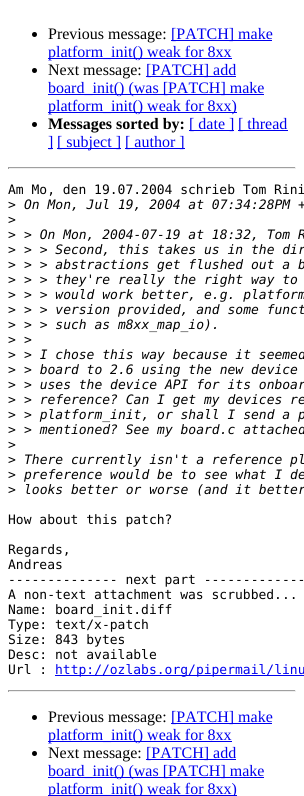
import math
import cairo



def draw(context):
    context.set_source_rgb(1, 1, 1)
    context.paint()
    context.set_source_rgb(0, 0, 0)
    context.arc(34.5, 34.5, 2.5, 0, 2 * math.pi)
    context.fill()
    context.set_source_rgb(0, 0, 238 / 255)
    context.rectangle(171, 40, 101, 1)
    context.fill()
    context.rectangle(48, 58, 184, 1)
    context.fill()
    context.set_source_rgb(0, 0, 0)
    context.arc(34.5, 70.5, 2.5, 0, 2 * math.pi)
    context.fill()
    context.set_source_rgb(0, 0, 238 / 255)
    context.rectangle(146, 76, 90, 1)
    context.fill()
    context.rectangle(48, 94, 216, 1)
    context.fill()
    context.rectangle(48, 112, 189, 1)
    context.fill()
    context.set_source_rgb(0, 0, 0)
    context.arc(34.5, 124.5, 2.5, 0, 2 * math.pi)
    context.fill()
    context.set_source_rgb(0, 0, 238 / 255)
    context.rectangle(189, 130, 45, 1)
    context.fill()
    context.rectangle(238, 130, 50, 1)
    context.fill()
    context.rectangle(48, 148, 5, 1)
    context.fill()
    context.rectangle(57, 148, 64, 1)
    context.fill()
    context.rectangle(125, 148, 60, 1)
    context.fill()
    context.set_source_rgb(159 / 255, 159 / 255, 159 / 255)
    context.rectangle(8, 167, 288, 1)
    context.fill()
    context.set_source_rgb(238 / 255, 238 / 255, 238 / 255)
    context.rectangle(295, 167, 1, 2)
    context.fill()
    context.rectangle(8, 168, 288, 1)
    context.fill()
    context.set_source_rgb(159 / 255, 159 / 255, 159 / 255)
    context.rectangle(8, 167, 1, 2)
    context.fill()
    context.set_source_rgb(0, 0, 238 / 255)
    context.rectangle(55, 675, 249, 1)
    context.fill()
    context.set_source_rgb(159 / 255, 159 / 255, 159 / 255)
    context.rectangle(8, 690, 288, 1)
    context.fill()
    context.set_source_rgb(238 / 255, 238 / 255, 238 / 255)
    context.rectangle(295, 690, 1, 2)
    context.fill()
    context.rectangle(8, 691, 288, 1)
    context.fill()
    context.set_source_rgb(159 / 255, 159 / 255, 159 / 255)
    context.rectangle(8, 690, 1, 2)
    context.fill()
    context.set_source_rgb(0, 0, 0)
    context.arc(34.5, 717.5, 2.5, 0, 2 * math.pi)
    context.fill()
    context.set_source_rgb(0, 0, 238 / 255)
    context.rectangle(171, 723, 101, 1)
    context.fill()
    context.rectangle(48, 741, 184, 1)
    context.fill()
    context.set_source_rgb(0, 0, 0)
    context.arc(34.5, 753.5, 2.5, 0, 2 * math.pi)
    context.fill()
    context.set_source_rgb(0, 0, 238 / 255)
    context.rectangle(146, 759, 90, 1)
    context.fill()
    context.rectangle(48, 777, 216, 1)
    context.fill()
    context.rectangle(48, 795, 189, 1)
    context.fill()
    context.select_font_face("Liberation Serif")
    context.set_font_size(16)
    context.set_source_rgb(0, 0, 0)
    context.move_to(48, 39)
    context.show_text("Previous message:")
    context.set_source_rgb(0, 0, 238 / 255)
    context.move_to(171, 39)
    context.show_text("[PATCH] make")
    context.move_to(48, 57)
    context.show_text("platform_init() weak for 8xx")
    context.set_source_rgb(0, 0, 0)
    context.move_to(48, 75)
    context.show_text("Next message:")
    context.set_source_rgb(0, 0, 238 / 255)
    context.move_to(146, 75)
    context.show_text("[PATCH] add")
    context.move_to(48, 93)
    context.show_text("board_init() (was [PATCH] make")
    context.move_to(48, 111)
    context.show_text("platform_init() weak for 8xx)")
    context.select_font_face("Liberation Serif", cairo.FontSlant.NORMAL, cairo.FontWeight.BOLD)
    context.set_source_rgb(0, 0, 0)
    context.move_to(48, 129)
    context.show_text("Messages sorted by:")
    context.select_font_face("Liberation Serif")
    context.set_source_rgb(0, 0, 238 / 255)
    context.move_to(189, 129)
    context.show_text("[ date ]")
    context.move_to(238, 129)
    context.show_text("[ thread")
    context.move_to(48, 147)
    context.show_text("]")
    context.move_to(57, 147)
    context.show_text("[ subject ]")
    context.move_to(125, 147)
    context.show_text("[ author ]")
    context.select_font_face("DejaVu Sans Mono")
    context.set_font_size(13)
    context.set_source_rgb(0, 0, 0)
    context.move_to(8, 194)
    context.show_text("Am Mo, den 19.07.2004 schrieb Tom Rini")
    context.move_to(8, 209)
    context.show_text(">")
    context.select_font_face("DejaVu Sans Mono", cairo.FontSlant.ITALIC)
    context.move_to(24, 209)
    context.show_text("On Mon, Jul 19, 2004 at 07:34:28PM +")
    context.select_font_face("DejaVu Sans Mono")
    context.move_to(8, 224)
    context.show_text(">")
    context.move_to(8, 239)
    context.show_text(">")
    context.select_font_face("DejaVu Sans Mono", cairo.FontSlant.ITALIC)
    context.move_to(24, 239)
    context.show_text("> On Mon, 2004-07-19 at 18:32, Tom R")
    context.select_font_face("DejaVu Sans Mono")
    context.move_to(8, 254)
    context.show_text(">")
    context.select_font_face("DejaVu Sans Mono", cairo.FontSlant.ITALIC)
    context.move_to(24, 254)
    context.show_text("> > Second, this takes us in the dir")
    context.select_font_face("DejaVu Sans Mono")
    context.move_to(8, 269)
    context.show_text(">")
    context.select_font_face("DejaVu Sans Mono", cairo.FontSlant.ITALIC)
    context.move_to(24, 269)
    context.show_text("> > abstractions get flushed out a b")
    context.select_font_face("DejaVu Sans Mono")
    context.move_to(8, 284)
    context.show_text(">")
    context.select_font_face("DejaVu Sans Mono", cairo.FontSlant.ITALIC)
    context.move_to(24, 284)
    context.show_text("> > they're really the right way to")
    context.select_font_face("DejaVu Sans Mono")
    context.move_to(8, 299)
    context.show_text(">")
    context.select_font_face("DejaVu Sans Mono", cairo.FontSlant.ITALIC)
    context.move_to(24, 299)
    context.show_text("> > would work better, e.g. platform")
    context.select_font_face("DejaVu Sans Mono")
    context.move_to(8, 314)
    context.show_text(">")
    context.select_font_face("DejaVu Sans Mono", cairo.FontSlant.ITALIC)
    context.move_to(24, 314)
    context.show_text("> > version provided, and some funct")
    context.select_font_face("DejaVu Sans Mono")
    context.move_to(8, 329)
    context.show_text(">")
    context.select_font_face("DejaVu Sans Mono", cairo.FontSlant.ITALIC)
    context.move_to(24, 329)
    context.show_text("> > such as m8xx_map_io).")
    context.select_font_face("DejaVu Sans Mono")
    context.move_to(8, 344)
    context.show_text(">")
    context.select_font_face("DejaVu Sans Mono", cairo.FontSlant.ITALIC)
    context.move_to(24, 344)
    context.show_text(">")
    context.select_font_face("DejaVu Sans Mono")
    context.move_to(8, 359)
    context.show_text(">")
    context.select_font_face("DejaVu Sans Mono", cairo.FontSlant.ITALIC)
    context.move_to(24, 359)
    context.show_text("> I chose this way because it seemed")
    context.select_font_face("DejaVu Sans Mono")
    context.move_to(8, 374)
    context.show_text(">")
    context.select_font_face("DejaVu Sans Mono", cairo.FontSlant.ITALIC)
    context.move_to(24, 374)
    context.show_text("> board to 2.6 using the new device")
    context.select_font_face("DejaVu Sans Mono")
    context.move_to(8, 389)
    context.show_text(">")
    context.select_font_face("DejaVu Sans Mono", cairo.FontSlant.ITALIC)
    context.move_to(24, 389)
    context.show_text("> uses the device API for its onboar")
    context.select_font_face("DejaVu Sans Mono")
    context.move_to(8, 404)
    context.show_text(">")
    context.select_font_face("DejaVu Sans Mono", cairo.FontSlant.ITALIC)
    context.move_to(24, 404)
    context.show_text("> reference? Can I get my devices re")
    context.select_font_face("DejaVu Sans Mono")
    context.move_to(8, 419)
    context.show_text(">")
    context.select_font_face("DejaVu Sans Mono", cairo.FontSlant.ITALIC)
    context.move_to(24, 419)
    context.show_text("> platform_init, or shall I send a p")
    context.select_font_face("DejaVu Sans Mono")
    context.move_to(8, 434)
    context.show_text(">")
    context.select_font_face("DejaVu Sans Mono", cairo.FontSlant.ITALIC)
    context.move_to(24, 434)
    context.show_text("> mentioned? See my board.c attached")
    context.select_font_face("DejaVu Sans Mono")
    context.move_to(8, 449)
    context.show_text(">")
    context.move_to(8, 464)
    context.show_text(">")
    context.select_font_face("DejaVu Sans Mono", cairo.FontSlant.ITALIC)
    context.move_to(24, 464)
    context.show_text("There currently isn't a reference pl")
    context.select_font_face("DejaVu Sans Mono")
    context.move_to(8, 479)
    context.show_text(">")
    context.select_font_face("DejaVu Sans Mono", cairo.FontSlant.ITALIC)
    context.move_to(24, 479)
    context.show_text("preference would be to see what I de")
    context.select_font_face("DejaVu Sans Mono")
    context.move_to(8, 494)
    context.show_text(">")
    context.select_font_face("DejaVu Sans Mono", cairo.FontSlant.ITALIC)
    context.move_to(24, 494)
    context.show_text("looks better or worse (and it better")
    context.select_font_face("DejaVu Sans Mono")
    context.move_to(8, 524)
    context.show_text("How about this patch?")
    context.move_to(8, 554)
    context.show_text("Regards,")
    context.move_to(8, 569)
    context.show_text("Andreas")
    context.move_to(8, 584)
    context.show_text("-------------- next part -------------")
    context.move_to(8, 599)
    context.show_text("A non-text attachment was scrubbed...")
    context.move_to(8, 614)
    context.show_text("Name: board_init.diff")
    context.move_to(8, 629)
    context.show_text("Type: text/x-patch")
    context.move_to(8, 644)
    context.show_text("Size: 843 bytes")
    context.move_to(8, 659)
    context.show_text("Desc: not available")
    context.move_to(8, 674)
    context.show_text("Url :")
    context.set_source_rgb(0, 0, 238 / 255)
    context.move_to(55, 674)
    context.show_text("http://ozlabs.org/pipermail/linu")
    context.select_font_face("Liberation Serif")
    context.set_font_size(16)
    context.set_source_rgb(0, 0, 0)
    context.move_to(48, 722)
    context.show_text("Previous message:")
    context.set_source_rgb(0, 0, 238 / 255)
    context.move_to(171, 722)
    context.show_text("[PATCH] make")
    context.move_to(48, 740)
    context.show_text("platform_init() weak for 8xx")
    context.set_source_rgb(0, 0, 0)
    context.move_to(48, 758)
    context.show_text("Next message:")
    context.set_source_rgb(0, 0, 238 / 255)
    context.move_to(146, 758)
    context.show_text("[PATCH] add")
    context.move_to(48, 776)
    context.show_text("board_init() (was [PATCH] make")
    context.move_to(48, 794)
    context.show_text("platform_init() weak for 8xx)")


surface = cairo.ImageSurface(cairo.Format.RGB24, 304, 796)
context = cairo.Context(surface)
options = cairo.FontOptions()
options.set_hint_metrics(cairo.HintMetrics.OFF)
options.set_hint_style(cairo.HintStyle.NONE)
context.set_font_options(options)
context.set_miter_limit(4)
draw(context)
surface.write_to_png("out.png")
